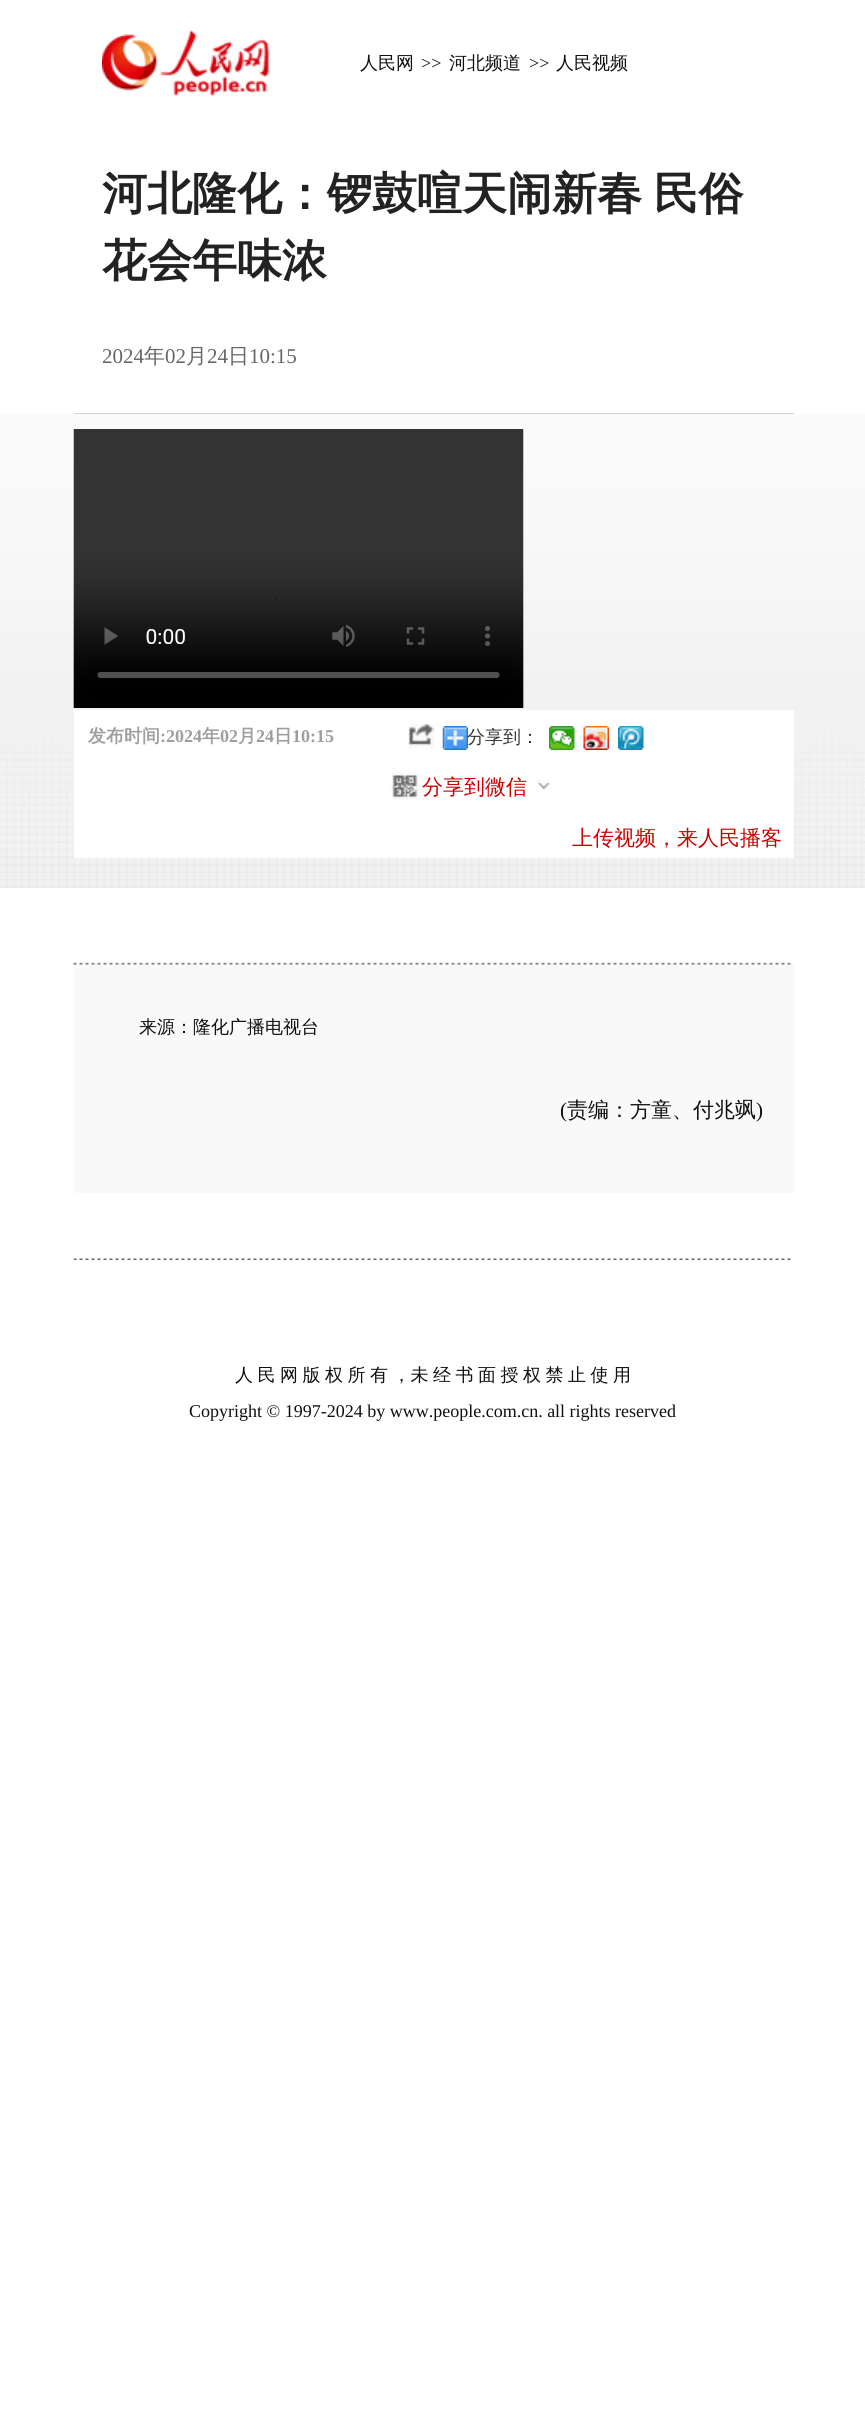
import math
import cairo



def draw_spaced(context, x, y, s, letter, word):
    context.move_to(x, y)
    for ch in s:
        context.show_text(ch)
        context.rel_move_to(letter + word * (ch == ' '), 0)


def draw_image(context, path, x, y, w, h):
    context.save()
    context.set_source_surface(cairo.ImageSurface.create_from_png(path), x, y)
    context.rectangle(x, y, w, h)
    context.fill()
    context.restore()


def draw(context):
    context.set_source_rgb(1, 1, 1)
    context.paint()
    draw_image(context, "images/1.png", 102, 30, 168, 67)
    context.set_source_rgb(211 / 255, 211 / 255, 211 / 255)
    context.rectangle(74, 413, 720, 1)
    context.fill()
    draw_image(context, "images/2.png", 0, 414, 865, 474)
    draw_image(context, "images/3.png", 73, 429, 451, 279)
    context.set_source_rgb(1, 1, 1)
    context.rectangle(74, 710, 720, 148)
    context.fill()
    draw_image(context, "images/4.png", 408, 724, 27, 25)
    draw_image(context, "images/5.png", 442, 726, 26, 24)
    draw_image(context, "images/6.png", 549, 726, 26, 24)
    draw_image(context, "images/7.png", 583, 726, 26, 24)
    draw_image(context, "images/8.png", 618, 726, 26, 24)
    draw_image(context, "images/9.png", 391, 772, 28, 28)
    draw_image(context, "images/10.png", 535, 780, 15, 10)
    draw_image(context, "images/11.png", 73, 962, 718, 3)
    context.set_source_rgb(249 / 255, 249 / 255, 249 / 255)
    context.rectangle(74, 965, 720, 228)
    context.fill()
    draw_image(context, "images/12.png", 73, 1258, 718, 2)
    context.select_font_face("WenQuanYi Zen Hei Medium")
    context.set_font_size(18)
    context.set_source_rgb(15 / 255, 15 / 255, 15 / 255)
    context.move_to(360, 69)
    context.show_text("人民网")
    context.select_font_face("Liberation Serif")
    context.move_to(421, 69)
    context.show_text(">>")
    context.select_font_face("WenQuanYi Zen Hei Medium")
    context.move_to(449, 69)
    context.show_text("河北频道")
    context.select_font_face("Liberation Serif")
    context.move_to(529, 69)
    context.show_text(">>")
    context.select_font_face("WenQuanYi Zen Hei Medium")
    context.move_to(556, 69)
    context.show_text("人民视频")
    context.select_font_face("WenQuanYi Zen Hei", cairo.FontSlant.NORMAL, cairo.FontWeight.BOLD)
    context.set_font_size(45)
    context.set_source_rgb(34 / 255, 34 / 255, 34 / 255)
    draw_spaced(context, 102, 209, "河北隆化：锣鼓喧天闹新春 民俗", 0, -2)
    context.move_to(102, 276)
    context.show_text("花会年味浓")
    context.select_font_face("Liberation Serif")
    context.set_font_size(21)
    context.set_source_rgb(102 / 255, 102 / 255, 102 / 255)
    context.move_to(102, 363)
    context.show_text("2024")
    context.select_font_face("WenQuanYi Zen Hei Medium")
    context.move_to(144, 363)
    context.show_text("年")
    context.select_font_face("Liberation Serif")
    context.move_to(165, 363)
    context.show_text("02")
    context.select_font_face("WenQuanYi Zen Hei Medium")
    context.move_to(186, 363)
    context.show_text("月")
    context.select_font_face("Liberation Serif")
    context.move_to(207, 363)
    context.show_text("24")
    context.select_font_face("WenQuanYi Zen Hei Medium")
    context.move_to(228, 363)
    context.show_text("日")
    context.select_font_face("Liberation Serif")
    context.move_to(249, 363)
    context.show_text("10:15")
    context.select_font_face("WenQuanYi Zen Hei", cairo.FontSlant.NORMAL, cairo.FontWeight.BOLD)
    context.set_font_size(18)
    context.set_source_rgb(158 / 255, 158 / 255, 158 / 255)
    context.move_to(88, 742)
    context.show_text("发布时间")
    context.select_font_face("Liberation Serif", cairo.FontSlant.NORMAL, cairo.FontWeight.BOLD)
    context.move_to(160, 742)
    context.show_text(":2024")
    context.select_font_face("WenQuanYi Zen Hei", cairo.FontSlant.NORMAL, cairo.FontWeight.BOLD)
    context.move_to(202, 742)
    context.show_text("年")
    context.select_font_face("Liberation Serif", cairo.FontSlant.NORMAL, cairo.FontWeight.BOLD)
    context.move_to(220, 742)
    context.show_text("02")
    context.select_font_face("WenQuanYi Zen Hei", cairo.FontSlant.NORMAL, cairo.FontWeight.BOLD)
    context.move_to(238, 742)
    context.show_text("月")
    context.select_font_face("Liberation Serif", cairo.FontSlant.NORMAL, cairo.FontWeight.BOLD)
    context.move_to(256, 742)
    context.show_text("24")
    context.select_font_face("WenQuanYi Zen Hei", cairo.FontSlant.NORMAL, cairo.FontWeight.BOLD)
    context.move_to(274, 742)
    context.show_text("日")
    context.select_font_face("Liberation Serif", cairo.FontSlant.NORMAL, cairo.FontWeight.BOLD)
    context.move_to(292, 742)
    context.show_text("10:15")
    context.select_font_face("WenQuanYi Zen Hei Medium")
    context.set_source_rgb(51 / 255, 51 / 255, 51 / 255)
    context.move_to(467, 743)
    context.show_text("分享到：")
    context.set_font_size(21)
    context.set_source_rgb(204 / 255, 0, 0)
    context.move_to(422, 794)
    context.show_text("分享到微信")
    context.move_to(572, 845)
    context.show_text("上传视频，来人民播客")
    context.set_font_size(18)
    context.set_source_rgb(15 / 255, 15 / 255, 15 / 255)
    context.move_to(139, 1033)
    context.show_text("来源：隆化广播电视台")
    context.select_font_face("Liberation Serif")
    context.set_font_size(21)
    context.move_to(560, 1117)
    context.show_text("(")
    context.select_font_face("WenQuanYi Zen Hei Medium")
    context.move_to(567, 1117)
    context.show_text("责编：方童、付兆飒")
    context.select_font_face("Liberation Serif")
    context.move_to(756, 1117)
    context.show_text(")")
    context.select_font_face("WenQuanYi Zen Hei Medium")
    context.set_font_size(18)
    draw_spaced(context, 235, 1381, "人 民 网 版 权 所 有 ，未 经 书 面 授 权 禁 止 使 用", 0, -0.9)
    context.select_font_face("Liberation Serif")
    context.move_to(189, 1417)
    context.show_text("Copyright © 1997-2024 by www.people.com.cn. all rights reserved")


surface = cairo.ImageSurface(cairo.Format.RGB24, 865, 2418)
context = cairo.Context(surface)
options = cairo.FontOptions()
options.set_hint_metrics(cairo.HintMetrics.OFF)
options.set_hint_style(cairo.HintStyle.NONE)
context.set_font_options(options)
context.set_miter_limit(4)
draw(context)
surface.write_to_png("out.png")
